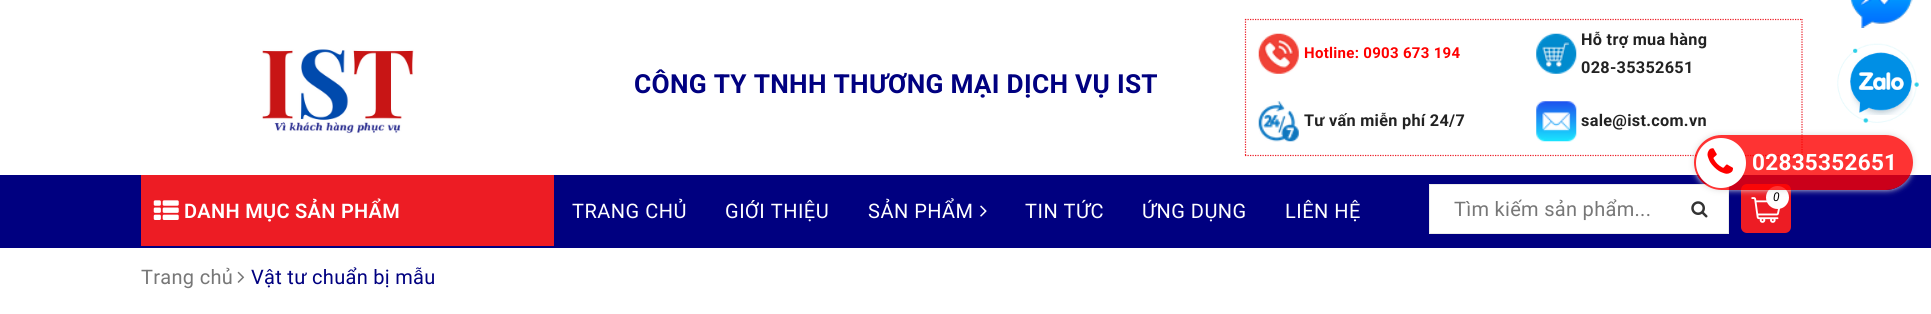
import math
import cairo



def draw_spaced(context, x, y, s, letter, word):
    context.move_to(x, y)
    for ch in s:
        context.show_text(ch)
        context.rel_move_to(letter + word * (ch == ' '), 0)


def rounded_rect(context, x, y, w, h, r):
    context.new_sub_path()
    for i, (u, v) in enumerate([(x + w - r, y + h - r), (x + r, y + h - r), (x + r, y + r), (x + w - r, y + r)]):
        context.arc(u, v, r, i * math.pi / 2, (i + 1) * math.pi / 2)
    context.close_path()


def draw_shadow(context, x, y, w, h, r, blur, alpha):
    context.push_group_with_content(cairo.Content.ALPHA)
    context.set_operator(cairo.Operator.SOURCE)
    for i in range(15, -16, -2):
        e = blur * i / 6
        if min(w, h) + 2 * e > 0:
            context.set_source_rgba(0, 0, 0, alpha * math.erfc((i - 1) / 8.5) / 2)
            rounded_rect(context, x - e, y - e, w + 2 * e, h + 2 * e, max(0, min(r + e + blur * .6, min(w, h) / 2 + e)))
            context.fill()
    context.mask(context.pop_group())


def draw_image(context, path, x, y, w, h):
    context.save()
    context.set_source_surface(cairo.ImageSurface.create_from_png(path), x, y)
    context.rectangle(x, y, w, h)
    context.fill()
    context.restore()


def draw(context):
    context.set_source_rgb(1, 1, 1)
    context.paint()
    draw_image(context, "images/1.png", 1850, 0, 63, 28)
    draw_image(context, "images/2.png", 262, 49, 152, 85)
    context.new_path()
    context.move_to(1245, 19.5)
    context.line_to(1802.5, 19.5)
    context.set_source_rgb(237 / 255, 28 / 255, 36 / 255)
    context.set_line_width(1.2)
    context.set_dash([1.25, 1.25])
    context.stroke()
    context.new_path()
    context.move_to(1802, 19)
    context.line_to(1802, 156)
    context.stroke()
    context.new_path()
    context.move_to(1245, 155.5)
    context.line_to(1802.5, 155.5)
    context.stroke()
    context.new_path()
    context.move_to(1245.5, 19)
    context.line_to(1245.5, 156)
    context.stroke()
    draw_image(context, "images/3.png", 1258, 33, 41, 41)
    draw_image(context, "images/4.png", 1258, 101, 41, 41)
    draw_image(context, "images/5.png", 1536, 33, 41, 41)
    draw_image(context, "images/6.png", 1536, 101, 41, 41)
    context.set_source_rgb(0, 0, 128 / 255)
    context.rectangle(0, 175, 1931, 73)
    context.fill()
    context.set_source_rgb(237 / 255, 28 / 255, 36 / 255)
    context.rectangle(141, 175, 413, 71)
    context.fill()
    draw_image(context, "images/7.png", 153, 200, 26, 20)
    draw_image(context, "images/8.png", 980, 205, 7, 12)
    rounded_rect(context, 1741, 184, 50, 49, 6)
    context.fill()
    draw_image(context, "images/9.png", 1751, 197, 30, 26)
    context.set_source_rgb(1, 1, 1)
    context.arc(1777.5, 197.5, 11.5, 0, 2 * math.pi)
    context.fill()
    context.rectangle(1429.5, 184.5, 299, 49)
    context.fill_preserve()
    context.set_source_rgb(235 / 255, 235 / 255, 235 / 255)
    context.set_line_width(1)
    context.set_dash([])
    context.stroke()
    draw_image(context, "images/10.png", 1691, 201, 17, 17)
    draw_image(context, "images/11.png", 1837, 43, 82, 80)
    draw_image(context, "images/12.png", 1850, 52, 63, 63)
    context.save()
    context.set_fill_rule(cairo.FillRule.EVEN_ODD)
    context.new_path()
    context.move_to(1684, 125)
    context.line_to(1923, 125)
    context.line_to(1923, 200)
    context.line_to(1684, 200)
    context.close_path()
    context.move_to(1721.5, 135)
    context.line_to(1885.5, 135)
    context.curve_to(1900.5, 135, 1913, 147.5, 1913, 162.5)
    context.curve_to(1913, 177.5, 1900.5, 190, 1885.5, 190)
    context.line_to(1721.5, 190)
    context.curve_to(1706.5, 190, 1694, 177.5, 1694, 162.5)
    context.curve_to(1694, 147.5, 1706.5, 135, 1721.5, 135)
    context.close_path()
    context.clip()
    context.set_source_rgb(221 / 255, 221 / 255, 221 / 255)
    draw_shadow(context, 1694, 135, 219, 55, 27.5, 3, 1)
    context.restore()
    context.set_source_rgba(254 / 255, 0, 0, 0.8)
    rounded_rect(context, 1694, 135, 219, 55, 27.5)
    context.fill()
    context.set_source_rgb(1, 1, 1)
    context.arc(1721, 163, 25, 0, 2 * math.pi)
    context.fill()
    draw_image(context, "images/13.png", 1707, 148, 26, 26)
    draw_image(context, "images/14.png", 237, 271, 8, 12)
    context.select_font_face("Roboto", cairo.FontSlant.NORMAL, cairo.FontWeight.BOLD)
    context.set_font_size(26.25)
    context.set_source_rgb(0, 0, 128 / 255)
    draw_spaced(context, 634, 93, "CÔNG TY TNHH THƯƠNG MẠI DỊCH VỤ IST", 0.3, 0)
    context.set_font_size(15)
    context.set_source_rgb(254 / 255, 0, 0)
    draw_spaced(context, 1304, 58, "Hotline: 0903 673 194", 0.3, 0)
    context.set_font_size(16.25)
    context.set_source_rgb(34 / 255, 34 / 255, 34 / 255)
    draw_spaced(context, 1304, 126, "Tư vấn miễn phí 24/7", 0.3, 0)
    draw_spaced(context, 1581, 45, "Hỗ trợ mua hàng", 0.3, 0)
    draw_spaced(context, 1581, 73, "028-35352651", 0.3, 0)
    draw_spaced(context, 1581, 126, "sale@ist.com.vn", 0.3, 0)
    context.select_font_face("Roboto SemiBold")
    context.set_font_size(20)
    context.set_source_rgb(1, 1, 1)
    draw_spaced(context, 184, 218, "DANH MỤC SẢN PHẨM", 0.3, 0)
    context.select_font_face("Roboto")
    draw_spaced(context, 572, 218, "TRANG CHỦ", 0.5, 0)
    draw_spaced(context, 725, 218, "GIỚI THIỆU", 0.5, 0)
    draw_spaced(context, 868, 218, "SẢN PHẨM", 0.5, 0)
    draw_spaced(context, 1025, 218, "TIN TỨC", 0.5, 0)
    draw_spaced(context, 1142, 218, "ỨNG DỤNG", 0.5, 0)
    draw_spaced(context, 1285, 218, "LIÊN HỆ", 0.5, 0)
    context.select_font_face("Roboto", cairo.FontSlant.ITALIC)
    context.set_font_size(12)
    context.set_source_rgb(0, 0, 0)
    draw_spaced(context, 1773, 201, "0", 0.3, 0)
    context.select_font_face("Roboto")
    context.set_font_size(20)
    context.set_source_rgb(119 / 255, 119 / 255, 119 / 255)
    draw_spaced(context, 1454, 216, "Tìm kiếm sản phẩm...", 0.3, 0)
    context.select_font_face("Roboto", cairo.FontSlant.NORMAL, cairo.FontWeight.BOLD)
    context.set_font_size(22.5)
    context.set_source_rgb(1, 1, 1)
    draw_spaced(context, 1752, 170, "02835352651", 0.3, 0)
    context.select_font_face("Roboto")
    context.set_font_size(20)
    context.set_source_rgb(119 / 255, 119 / 255, 119 / 255)
    draw_spaced(context, 141, 284, "Trang chủ", 0.3, 0)
    context.set_source_rgb(0, 0, 128 / 255)
    draw_spaced(context, 251, 284, "Vật tư chuẩn bị mẫu", 0.3, 0)


surface = cairo.ImageSurface(cairo.Format.RGB24, 1931, 314)
context = cairo.Context(surface)
options = cairo.FontOptions()
options.set_hint_metrics(cairo.HintMetrics.OFF)
options.set_hint_style(cairo.HintStyle.NONE)
context.set_font_options(options)
context.set_miter_limit(4)
draw(context)
surface.write_to_png("out.png")
